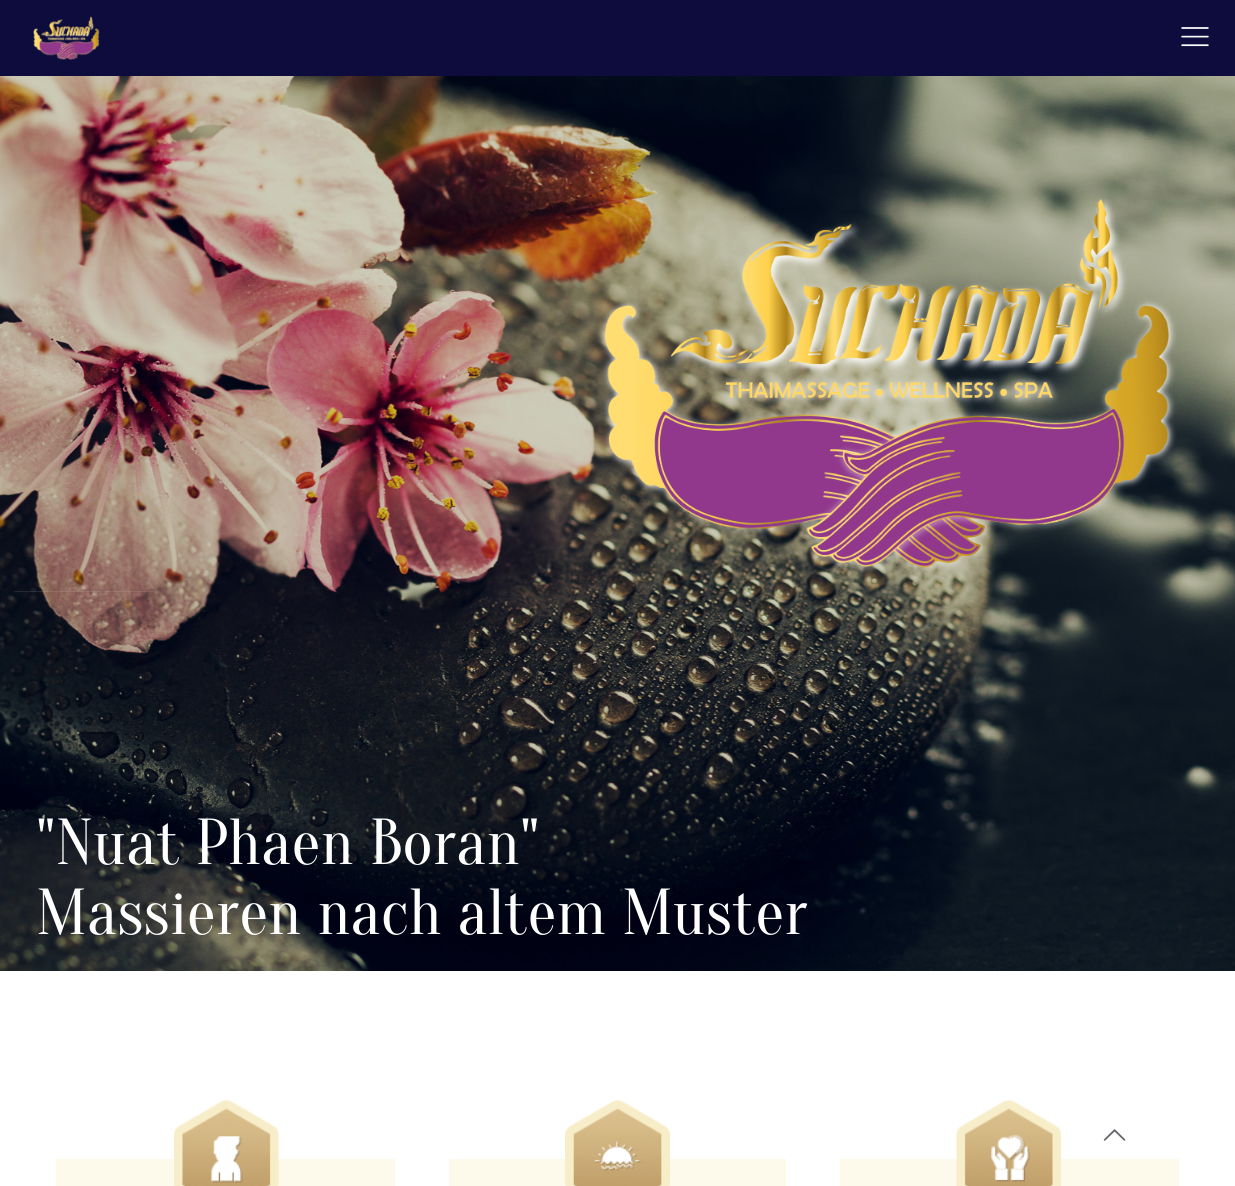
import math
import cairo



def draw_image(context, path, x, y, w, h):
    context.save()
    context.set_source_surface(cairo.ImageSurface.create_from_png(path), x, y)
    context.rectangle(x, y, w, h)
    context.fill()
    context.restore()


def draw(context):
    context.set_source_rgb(1, 1, 1)
    context.paint()
    context.set_source_rgb(14 / 255, 12 / 255, 61 / 255)
    context.rectangle(0, 0, 1235, 76)
    context.fill()
    draw_image(context, "images/1.png", 33, 16, 67, 44)
    draw_image(context, "images/2.png", 1181, 27, 28, 20)
    draw_image(context, "images/3.png", 0, 76, 1235, 895)
    draw_image(context, "images/4.png", 599, 199, 578, 375)
    context.set_source_rgba(1, 1, 1, 0.1)
    context.rectangle(14, 591, 140, 1)
    context.fill()
    context.set_source_rgb(253 / 255, 249 / 255, 235 / 255)
    context.rectangle(56, 1159, 339, 27)
    context.fill()
    draw_image(context, "images/5.png", 174, 1100, 105, 86)
    context.rectangle(449, 1159, 337, 27)
    context.fill()
    draw_image(context, "images/6.png", 565, 1100, 105, 86)
    context.rectangle(840, 1159, 339, 27)
    context.fill()
    draw_image(context, "images/7.png", 956, 1100, 106, 86)
    draw_image(context, "images/8.png", 1103, 1129, 23, 12)
    context.select_font_face("Oranienbaum")
    context.set_font_size(65)
    context.set_source_rgb(1, 1, 1)
    context.move_to(36, 864)
    context.show_text("\"Nuat Phaen Boran\"")
    context.move_to(36, 934)
    context.show_text("Massieren nach altem Muster")


surface = cairo.ImageSurface(cairo.Format.RGB24, 1235, 1186)
context = cairo.Context(surface)
options = cairo.FontOptions()
options.set_hint_metrics(cairo.HintMetrics.OFF)
options.set_hint_style(cairo.HintStyle.NONE)
context.set_font_options(options)
context.set_miter_limit(4)
draw(context)
surface.write_to_png("out.png")
